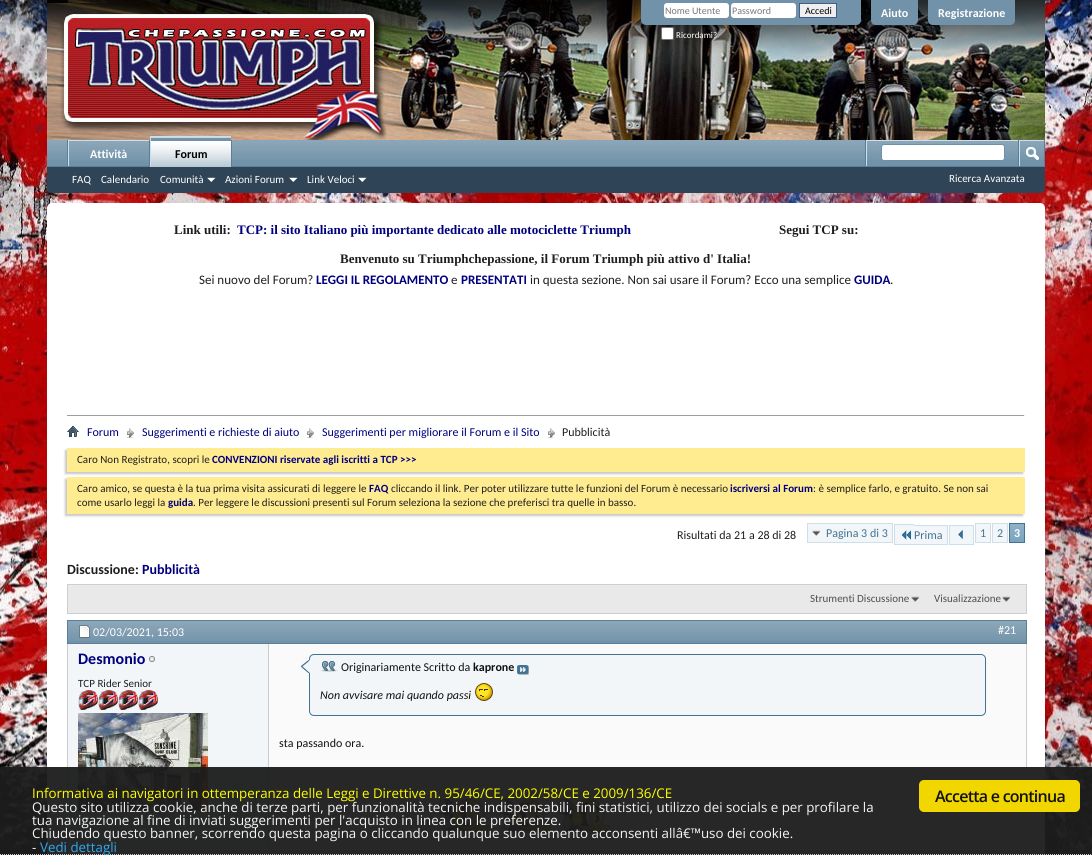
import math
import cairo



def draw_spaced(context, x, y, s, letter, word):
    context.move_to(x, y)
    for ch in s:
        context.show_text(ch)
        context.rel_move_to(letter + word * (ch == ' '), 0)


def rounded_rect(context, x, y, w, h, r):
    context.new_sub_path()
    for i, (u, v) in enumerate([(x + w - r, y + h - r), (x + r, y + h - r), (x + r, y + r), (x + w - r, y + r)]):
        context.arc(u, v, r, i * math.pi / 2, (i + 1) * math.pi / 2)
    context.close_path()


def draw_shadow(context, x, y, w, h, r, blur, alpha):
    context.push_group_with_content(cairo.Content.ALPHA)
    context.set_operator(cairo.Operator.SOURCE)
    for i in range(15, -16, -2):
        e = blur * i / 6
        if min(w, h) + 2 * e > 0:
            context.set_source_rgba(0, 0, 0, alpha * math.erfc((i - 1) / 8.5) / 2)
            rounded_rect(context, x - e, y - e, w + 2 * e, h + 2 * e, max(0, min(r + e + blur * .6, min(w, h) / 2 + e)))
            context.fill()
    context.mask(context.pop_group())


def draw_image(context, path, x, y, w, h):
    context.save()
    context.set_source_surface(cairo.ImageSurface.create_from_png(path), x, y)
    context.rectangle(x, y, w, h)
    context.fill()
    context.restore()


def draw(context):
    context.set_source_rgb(1, 1, 1)
    context.paint()
    draw_image(context, "images/1.png", 0, 0, 1092, 855)
    draw_image(context, "images/2.png", 47, 0, 998, 140)
    context.set_source_rgb(113 / 255, 146 / 255, 168 / 255)
    context.new_path()
    context.move_to(641, 0)
    context.line_to(861, 0)
    context.line_to(861, 20)
    context.curve_to(861, 23, 859, 25, 856, 25)
    context.line_to(646, 25)
    context.curve_to(643, 25, 641, 23, 641, 20)
    context.close_path()
    context.fill()
    context.set_source_rgb(1, 1, 1)
    rounded_rect(context, 664, 3, 65, 15, 3)
    context.fill()
    rounded_rect(context, 731, 3, 65, 15, 3)
    context.fill()
    context.set_source_rgb(239 / 255, 239 / 255, 239 / 255)
    context.rectangle(799.5, 3.5, 37, 14)
    context.fill_preserve()
    context.set_source_rgb(65 / 255, 93 / 255, 141 / 255)
    context.set_line_width(1)
    context.stroke()
    context.set_source_rgb(1, 1, 1)
    rounded_rect(context, 661.5, 27.5, 12, 12, 1.5)
    context.fill_preserve()
    context.set_source_rgb(118 / 255, 118 / 255, 118 / 255)
    context.stroke()
    context.set_source_rgb(113 / 255, 146 / 255, 168 / 255)
    context.new_path()
    context.move_to(871, 0)
    context.line_to(918, 0)
    context.line_to(918, 20)
    context.curve_to(918, 23, 916, 25, 913, 25)
    context.line_to(876, 25)
    context.curve_to(873, 25, 871, 23, 871, 20)
    context.close_path()
    context.fill()
    context.new_path()
    context.move_to(928, 0)
    context.line_to(1015, 0)
    context.line_to(1015, 20)
    context.curve_to(1015, 23, 1013, 25, 1010, 25)
    context.line_to(933, 25)
    context.curve_to(930, 25, 928, 23, 928, 20)
    context.close_path()
    context.fill()
    context.set_source_rgb(47 / 255, 68 / 255, 86 / 255)
    context.new_path()
    context.move_to(47, 140)
    context.line_to(1045, 140)
    context.line_to(1045, 188)
    context.curve_to(1045, 191, 1043, 193, 1040, 193)
    context.line_to(52, 193)
    context.curve_to(49, 193, 47, 191, 47, 188)
    context.close_path()
    context.fill()
    context.set_source_rgb(113 / 255, 146 / 255, 168 / 255)
    context.rectangle(47, 140, 997, 26)
    context.fill()
    draw_image(context, "images/3.png", 47, 140, 997, 20)
    context.set_source_rgb(90 / 255, 127 / 255, 151 / 255)
    context.rectangle(149, 140, 1, 27)
    context.fill()
    context.rectangle(67, 140, 1, 27)
    context.fill()
    context.set_source_rgb(113 / 255, 146 / 255, 168 / 255)
    context.rectangle(69, 141, 80, 19)
    context.fill()
    draw_image(context, "images/4.png", 69, 141, 80, 20)
    context.set_source_rgb(206 / 255, 223 / 255, 235 / 255)
    context.rectangle(68, 140, 81, 1)
    context.fill()
    context.rectangle(68, 140, 1, 27)
    context.fill()
    context.set_source_rgb(90 / 255, 127 / 255, 151 / 255)
    context.rectangle(231, 140, 1, 26)
    context.fill()
    context.rectangle(47, 166, 998, 1)
    context.fill()
    context.set_source_rgb(113 / 255, 146 / 255, 168 / 255)
    context.rectangle(151, 137, 80, 30)
    context.fill()
    draw_image(context, "images/5.png", 151, 137, 80, 30)
    context.set_source_rgb(206 / 255, 223 / 255, 235 / 255)
    context.rectangle(150, 136, 81, 1)
    context.fill()
    context.rectangle(150, 136, 1, 31)
    context.fill()
    draw_image(context, "images/6.png", 207, 177, 9, 5)
    draw_image(context, "images/6.png", 289, 177, 9, 5)
    draw_image(context, "images/6.png", 358, 177, 9, 5)
    context.set_source_rgb(90 / 255, 127 / 255, 151 / 255)
    context.rectangle(865, 140, 1, 26)
    context.fill()
    context.set_source_rgb(206 / 255, 223 / 255, 235 / 255)
    context.rectangle(866, 140, 152, 1)
    context.fill()
    context.rectangle(866, 140, 1, 26)
    context.fill()
    context.set_source_rgb(1, 1, 1)
    rounded_rect(context, 881.5, 144.5, 123, 16, 2.5)
    context.fill_preserve()
    context.set_source_rgb(107 / 255, 145 / 255, 171 / 255)
    context.stroke()
    context.set_source_rgb(90 / 255, 127 / 255, 151 / 255)
    context.rectangle(1044, 140, 1, 26)
    context.fill()
    context.rectangle(1018, 140, 1, 26)
    context.fill()
    context.set_source_rgb(206 / 255, 223 / 255, 235 / 255)
    context.rectangle(1019, 140, 25, 1)
    context.fill()
    context.rectangle(1019, 140, 1, 26)
    context.fill()
    draw_image(context, "images/7.png", 1026, 147, 13, 14)
    context.set_source_rgb(1, 1, 1)
    rounded_rect(context, 47, 203, 998, 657, 5)
    context.fill()
    context.set_source_rgb(159 / 255, 159 / 255, 159 / 255)
    context.rectangle(67, 415, 958, 1)
    context.fill()
    context.set_source_rgb(238 / 255, 238 / 255, 238 / 255)
    context.rectangle(1024, 415, 1, 1)
    context.fill()
    draw_image(context, "images/8.png", 67, 426, 12, 11)
    draw_image(context, "images/9.png", 127, 428, 7, 10)
    draw_image(context, "images/9.png", 307, 428, 7, 10)
    draw_image(context, "images/9.png", 548, 428, 7, 10)
    context.set_source_rgb(200 / 255, 200 / 255, 200 / 255)
    draw_shadow(context, 65, 450, 958, 24, 0, 1, 1)
    context.set_source_rgb(1, 235 / 255, 144 / 255)
    context.rectangle(67, 448, 958, 24)
    context.fill()
    context.set_source_rgb(200 / 255, 200 / 255, 200 / 255)
    draw_shadow(context, 65, 479, 958, 37, 0, 1, 1)
    context.set_source_rgb(1, 235 / 255, 144 / 255)
    context.rectangle(67, 477, 958, 37)
    context.fill()
    context.set_source_rgb(242 / 255, 246 / 255, 248 / 255)
    context.rectangle(808, 524, 84, 18)
    context.fill()
    draw_image(context, "images/10.png", 812, 530, 9, 6)
    context.rectangle(807.5, 523.5, 85, 19)
    context.set_source_rgb(206 / 255, 223 / 255, 235 / 255)
    context.stroke()
    context.set_source_rgb(242 / 255, 246 / 255, 248 / 255)
    context.rectangle(895, 525, 19, 19)
    context.fill()
    draw_image(context, "images/11.png", 901, 530, 10, 10)
    context.set_source_rgb(206 / 255, 223 / 255, 235 / 255)
    context.rectangle(894, 524, 20, 1)
    context.fill()
    context.rectangle(894, 544, 20, 1)
    context.fill()
    context.rectangle(894, 524, 1, 21)
    context.fill()
    context.set_source_rgb(242 / 255, 246 / 255, 248 / 255)
    context.rectangle(914, 526, 33, 18)
    context.fill()
    context.set_source_rgb(206 / 255, 223 / 255, 235 / 255)
    context.rectangle(914, 525, 34, 1)
    context.fill()
    context.rectangle(947, 525, 1, 20)
    context.fill()
    context.rectangle(914, 544, 34, 1)
    context.fill()
    context.set_source_rgb(242 / 255, 246 / 255, 248 / 255)
    context.rectangle(949.5, 525.5, 24, 19)
    context.fill_preserve()
    context.set_source_rgb(206 / 255, 223 / 255, 235 / 255)
    context.stroke()
    draw_image(context, "images/12.png", 958, 530, 5, 9)
    context.set_source_rgb(242 / 255, 246 / 255, 248 / 255)
    context.rectangle(975.5, 523.5, 15, 19)
    context.fill_preserve()
    context.set_source_rgb(206 / 255, 223 / 255, 235 / 255)
    context.stroke()
    context.set_source_rgb(242 / 255, 246 / 255, 248 / 255)
    context.rectangle(992.5, 523.5, 15, 19)
    context.fill_preserve()
    context.set_source_rgb(206 / 255, 223 / 255, 235 / 255)
    context.stroke()
    context.set_source_rgb(117 / 255, 159 / 255, 187 / 255)
    context.rectangle(1010, 524, 14, 18)
    context.fill()
    draw_image(context, "images/13.png", 1010, 524, 14, 18)
    context.rectangle(1009.5, 523.5, 15, 19)
    context.set_source_rgb(65 / 255, 115 / 255, 148 / 255)
    context.stroke()
    context.set_source_rgb(233 / 255, 233 / 255, 233 / 255)
    context.rectangle(68, 586, 958, 27)
    context.fill()
    context.set_source_rgb(237 / 255, 237 / 255, 237 / 255)
    context.rectangle(67, 585, 960, 1)
    context.fill()
    context.rectangle(67.5, 584.5, 959, 29)
    context.set_source_rgb(206 / 255, 206 / 255, 206 / 255)
    context.stroke()
    draw_image(context, "images/14.png", 911, 596, 9, 7)
    draw_image(context, "images/14.png", 1002, 596, 9, 7)
    context.rectangle(67.5, 620.5, 959, 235)
    context.set_source_rgb(204 / 255, 204 / 255, 204 / 255)
    context.stroke()
    context.set_source_rgb(113 / 255, 146 / 255, 168 / 255)
    context.rectangle(68, 621, 958, 22)
    context.fill()
    draw_image(context, "images/15.png", 68, 621, 958, 20)
    context.rectangle(67.5, 620.5, 959, 23)
    context.set_source_rgb(90 / 255, 127 / 255, 151 / 255)
    context.stroke()
    draw_image(context, "images/16.png", 79, 625, 11, 13)
    context.set_source_rgb(242 / 255, 246 / 255, 248 / 255)
    context.rectangle(68, 644, 200, 211)
    context.fill()
    draw_image(context, "images/17.png", 149, 656, 6, 6)
    draw_image(context, "images/18.png", 78, 690, 20, 20)
    draw_image(context, "images/18.png", 98, 690, 20, 20)
    draw_image(context, "images/18.png", 118, 690, 20, 20)
    draw_image(context, "images/18.png", 138, 690, 20, 20)
    draw_image(context, "images/19.png", 78, 713, 130, 98)
    context.set_source_rgb(250 / 255, 250 / 255, 250 / 255)
    context.rectangle(269, 644, 757, 211)
    context.fill()
    context.set_source_rgb(204 / 255, 204 / 255, 204 / 255)
    context.rectangle(268, 644, 1, 211)
    context.fill()
    context.set_source_rgb(242 / 255, 246 / 255, 248 / 255)
    rounded_rect(context, 309.5, 654.5, 676, 61, 4.5)
    context.fill_preserve()
    context.set_source_rgb(65 / 255, 115 / 255, 148 / 255)
    context.stroke()
    draw_image(context, "images/20.png", 301, 660, 9, 13)
    draw_image(context, "images/21.png", 320, 661, 18, 11)
    draw_image(context, "images/22.png", 517, 665, 12, 10)
    draw_image(context, "images/23.png", 475, 683, 18, 18)
    draw_image(context, "images/24.png", 439, 798, 52, 36)
    draw_image(context, "images/24.png", 499, 798, 52, 36)
    draw_image(context, "images/24.png", 559, 798, 52, 36)
    context.set_source_rgba(29 / 255, 29 / 255, 29 / 255, 0.95)
    context.rectangle(0, 767, 1092, 88)
    context.fill()
    context.new_path()
    context.move_to(0, 854.5)
    context.line_to(1092, 854.5)
    context.set_source_rgb(204 / 255, 204 / 255, 204 / 255)
    context.set_dash([1, 1])
    context.stroke()
    context.set_source_rgb(241 / 255, 214 / 255, 0)
    rounded_rect(context, 919, 780, 161, 32, 5)
    context.fill()
    context.select_font_face("Carlito")
    context.set_font_size(10)
    context.set_source_rgb(119 / 255, 119 / 255, 119 / 255)
    context.move_to(665, 14)
    context.show_text("Nome Utente")
    context.move_to(732, 14)
    context.show_text("Password")
    context.set_source_rgb(0, 0, 0)
    context.move_to(805, 14)
    context.show_text("Accedi")
    context.set_font_size(9)
    context.set_source_rgb(1, 1, 1)
    context.move_to(676, 38)
    context.show_text("Ricordami?")
    context.select_font_face("Carlito", cairo.FontSlant.NORMAL, cairo.FontWeight.BOLD)
    context.set_font_size(12)
    context.move_to(881, 17)
    context.show_text("Aiuto")
    context.move_to(938, 17)
    context.show_text("Registrazione")
    context.move_to(90, 158)
    context.show_text("Attività")
    context.set_source_rgb(0, 0, 0)
    context.move_to(175, 158)
    context.show_text("Forum")
    context.select_font_face("Carlito")
    context.set_font_size(11)
    context.set_source_rgb(1, 1, 1)
    context.move_to(72, 183)
    context.show_text("FAQ")
    context.move_to(101, 183)
    context.show_text("Calendario")
    context.move_to(160, 183)
    context.show_text("Comunità")
    context.move_to(225, 183)
    context.show_text("Azioni Forum")
    context.move_to(307, 183)
    context.show_text("Link Veloci")
    context.move_to(949, 182)
    context.show_text("Ricerca Avanzata")
    context.select_font_face("Liberation Serif", cairo.FontSlant.NORMAL, cairo.FontWeight.BOLD)
    context.set_font_size(13)
    context.set_source_rgb(30 / 255, 30 / 255, 30 / 255)
    context.move_to(174, 234)
    context.show_text("Link utili:")
    context.set_source_rgb(0, 0, 127 / 255)
    context.move_to(237, 234)
    context.show_text("TCP: il sito Italiano più importante dedicato alle motociclette Triumph")
    context.set_source_rgb(30 / 255, 30 / 255, 30 / 255)
    context.move_to(779, 234)
    context.show_text("Segui TCP su:")
    context.move_to(340, 263)
    context.show_text("Benvenuto su Triumphchepassione, il Forum Triumph più attivo d' Italia!")
    context.select_font_face("Carlito")
    context.move_to(199, 284)
    context.show_text("Sei nuovo del Forum?")
    context.select_font_face("Carlito", cairo.FontSlant.NORMAL, cairo.FontWeight.BOLD)
    context.set_source_rgb(0, 0, 127 / 255)
    context.move_to(316, 284)
    context.show_text("LEGGI IL REGOLAMENTO")
    context.select_font_face("Carlito")
    context.set_source_rgb(30 / 255, 30 / 255, 30 / 255)
    context.move_to(451, 284)
    context.show_text("e")
    context.select_font_face("Carlito", cairo.FontSlant.NORMAL, cairo.FontWeight.BOLD)
    context.set_source_rgb(0, 0, 127 / 255)
    context.move_to(461, 284)
    context.show_text("PRESENTATI")
    context.select_font_face("Carlito")
    context.set_source_rgb(30 / 255, 30 / 255, 30 / 255)
    context.move_to(530, 284)
    context.show_text("in questa sezione. Non sai usare il Forum? Ecco una semplice")
    context.select_font_face("Carlito", cairo.FontSlant.NORMAL, cairo.FontWeight.BOLD)
    context.set_source_rgb(0, 0, 127 / 255)
    context.move_to(854, 284)
    context.show_text("GUIDA")
    context.select_font_face("Carlito")
    context.set_source_rgb(30 / 255, 30 / 255, 30 / 255)
    context.move_to(890, 284)
    context.show_text(".")
    context.set_font_size(12)
    context.set_source_rgb(0, 0, 127 / 255)
    context.move_to(87, 436)
    context.show_text("Forum")
    context.move_to(142, 436)
    context.show_text("Suggerimenti e richieste di aiuto")
    context.move_to(322, 436)
    context.show_text("Suggerimenti per migliorare il Forum e il Sito")
    context.set_source_rgb(30 / 255, 30 / 255, 30 / 255)
    context.move_to(562, 436)
    context.show_text("Pubblicità")
    context.set_font_size(11)
    context.move_to(77, 463)
    context.show_text("Caro Non Registrato, scopri le")
    context.select_font_face("Carlito", cairo.FontSlant.NORMAL, cairo.FontWeight.BOLD)
    context.set_source_rgb(0, 0, 127 / 255)
    context.move_to(212, 463)
    context.show_text("CONVENZIONI riservate agli iscritti a TCP >>>")
    context.select_font_face("Carlito")
    context.set_source_rgb(30 / 255, 30 / 255, 30 / 255)
    context.move_to(77, 492)
    context.show_text("Caro amico, se questa è la tua prima visita assicurati di leggere le")
    context.select_font_face("Carlito", cairo.FontSlant.NORMAL, cairo.FontWeight.BOLD)
    context.set_source_rgb(0, 0, 127 / 255)
    context.move_to(369, 492)
    context.show_text("FAQ")
    context.select_font_face("Carlito")
    context.set_source_rgb(30 / 255, 30 / 255, 30 / 255)
    context.move_to(391, 492)
    context.show_text("cliccando il link. Per poter utilizzare tutte le funzioni del Forum è necessario")
    context.select_font_face("Carlito", cairo.FontSlant.NORMAL, cairo.FontWeight.BOLD)
    context.set_source_rgb(0, 0, 127 / 255)
    context.move_to(730, 492)
    context.show_text("iscriversi al Forum")
    context.select_font_face("Carlito")
    context.set_source_rgb(30 / 255, 30 / 255, 30 / 255)
    context.move_to(813, 492)
    context.show_text(": è semplice farlo, e gratuito. Se non sai")
    context.move_to(77, 506)
    context.show_text("come usarlo leggi la")
    context.select_font_face("Carlito", cairo.FontSlant.NORMAL, cairo.FontWeight.BOLD)
    context.set_source_rgb(0, 0, 127 / 255)
    context.move_to(168, 506)
    context.show_text("guida")
    context.select_font_face("Carlito")
    context.set_source_rgb(30 / 255, 30 / 255, 30 / 255)
    context.move_to(193, 506)
    context.show_text(". Per leggere le discussioni presenti sul Forum seleziona la sezione che preferisci tra quelle in basso.")
    context.set_font_size(12)
    context.move_to(677, 539)
    context.show_text("Risultati da 21 a 28 di 28")
    context.set_source_rgb(65 / 255, 115 / 255, 148 / 255)
    context.move_to(826, 537)
    context.show_text("Pagina 3 di 3")
    context.move_to(914, 539)
    context.show_text("Prima")
    context.move_to(980, 537)
    context.show_text("1")
    context.move_to(997, 537)
    context.show_text("2")
    context.select_font_face("Carlito", cairo.FontSlant.NORMAL, cairo.FontWeight.BOLD)
    context.set_source_rgb(1, 1, 1)
    context.move_to(1014, 537)
    context.show_text("3")
    context.set_font_size(14)
    context.set_source_rgb(30 / 255, 30 / 255, 30 / 255)
    context.move_to(67, 574)
    context.show_text("Discussione:")
    context.set_source_rgb(0, 0, 127 / 255)
    context.move_to(142, 574)
    context.show_text("Pubblicità")
    context.select_font_face("Carlito")
    context.set_font_size(11)
    context.set_source_rgb(78 / 255, 78 / 255, 78 / 255)
    context.move_to(810, 602)
    context.show_text("Strumenti Discussione")
    context.move_to(934, 602)
    context.show_text("Visualizzazione")
    context.set_font_size(12)
    context.set_source_rgb(1, 1, 1)
    context.move_to(93, 636)
    context.show_text("02/03/2021, 15:03")
    context.move_to(998, 634)
    context.show_text("#21")
    context.select_font_face("Carlito", cairo.FontSlant.NORMAL, cairo.FontWeight.BOLD)
    context.set_font_size(16)
    context.set_source_rgb(0, 0, 127 / 255)
    context.move_to(78, 664)
    context.show_text("Desmonio")
    context.select_font_face("Carlito")
    context.set_font_size(11)
    context.set_source_rgb(30 / 255, 30 / 255, 30 / 255)
    context.move_to(78, 687)
    context.show_text("TCP Rider Senior")
    context.set_font_size(12)
    context.set_source_rgb(17 / 255, 17 / 255, 17 / 255)
    context.move_to(341, 671)
    context.show_text("Originariamente Scritto da")
    context.select_font_face("Carlito", cairo.FontSlant.NORMAL, cairo.FontWeight.BOLD)
    context.move_to(473, 671)
    context.show_text("kaprone")
    context.select_font_face("Carlito", cairo.FontSlant.ITALIC)
    context.move_to(320, 699)
    context.show_text("Non avvisare mai quando passi")
    context.select_font_face("Carlito")
    context.move_to(279, 747)
    context.show_text("sta passando ora.")
    context.select_font_face("Open Sans")
    context.set_font_size(13.33)
    context.set_source_rgb(1, 1, 0)
    context.move_to(32, 798)
    context.show_text("Informativa ai navigatori in ottemperanza delle Leggi e Direttive n. 95/46/CE, 2002/58/CE e 2009/136/CE")
    context.set_source_rgb(245 / 255, 245 / 255, 245 / 255)
    context.move_to(32, 812)
    context.show_text("Questo sito utilizza cookie, anche di terze parti, per funzionalità tecniche indispensabili, fini statistici, utilizzo dei socials e per profilare la")
    context.move_to(32, 825)
    context.show_text("tua navigazione al fine di inviati suggerimenti per l'acquisto in linea con le preferenze.")
    context.move_to(32, 838)
    context.show_text("Chiudendo questo banner, scorrendo questa pagina o cliccando qualunque suo elemento acconsenti allâ€™uso dei cookie.")
    context.select_font_face("Open Sans SemiBold")
    context.set_font_size(16)
    context.set_source_rgb(17 / 255, 17 / 255, 17 / 255)
    draw_spaced(context, 935, 802, "Accetta e continua", -0.75, 0)
    context.select_font_face("Open Sans")
    context.set_font_size(13.33)
    context.set_source_rgb(245 / 255, 245 / 255, 245 / 255)
    context.move_to(32, 852)
    context.show_text("-")
    context.set_source_rgb(49 / 255, 168 / 255, 240 / 255)
    context.move_to(40, 852)
    context.show_text("Vedi dettagli")


surface = cairo.ImageSurface(cairo.Format.RGB24, 1092, 855)
context = cairo.Context(surface)
options = cairo.FontOptions()
options.set_hint_metrics(cairo.HintMetrics.OFF)
options.set_hint_style(cairo.HintStyle.NONE)
context.set_font_options(options)
context.set_miter_limit(4)
draw(context)
surface.write_to_png("out.png")
